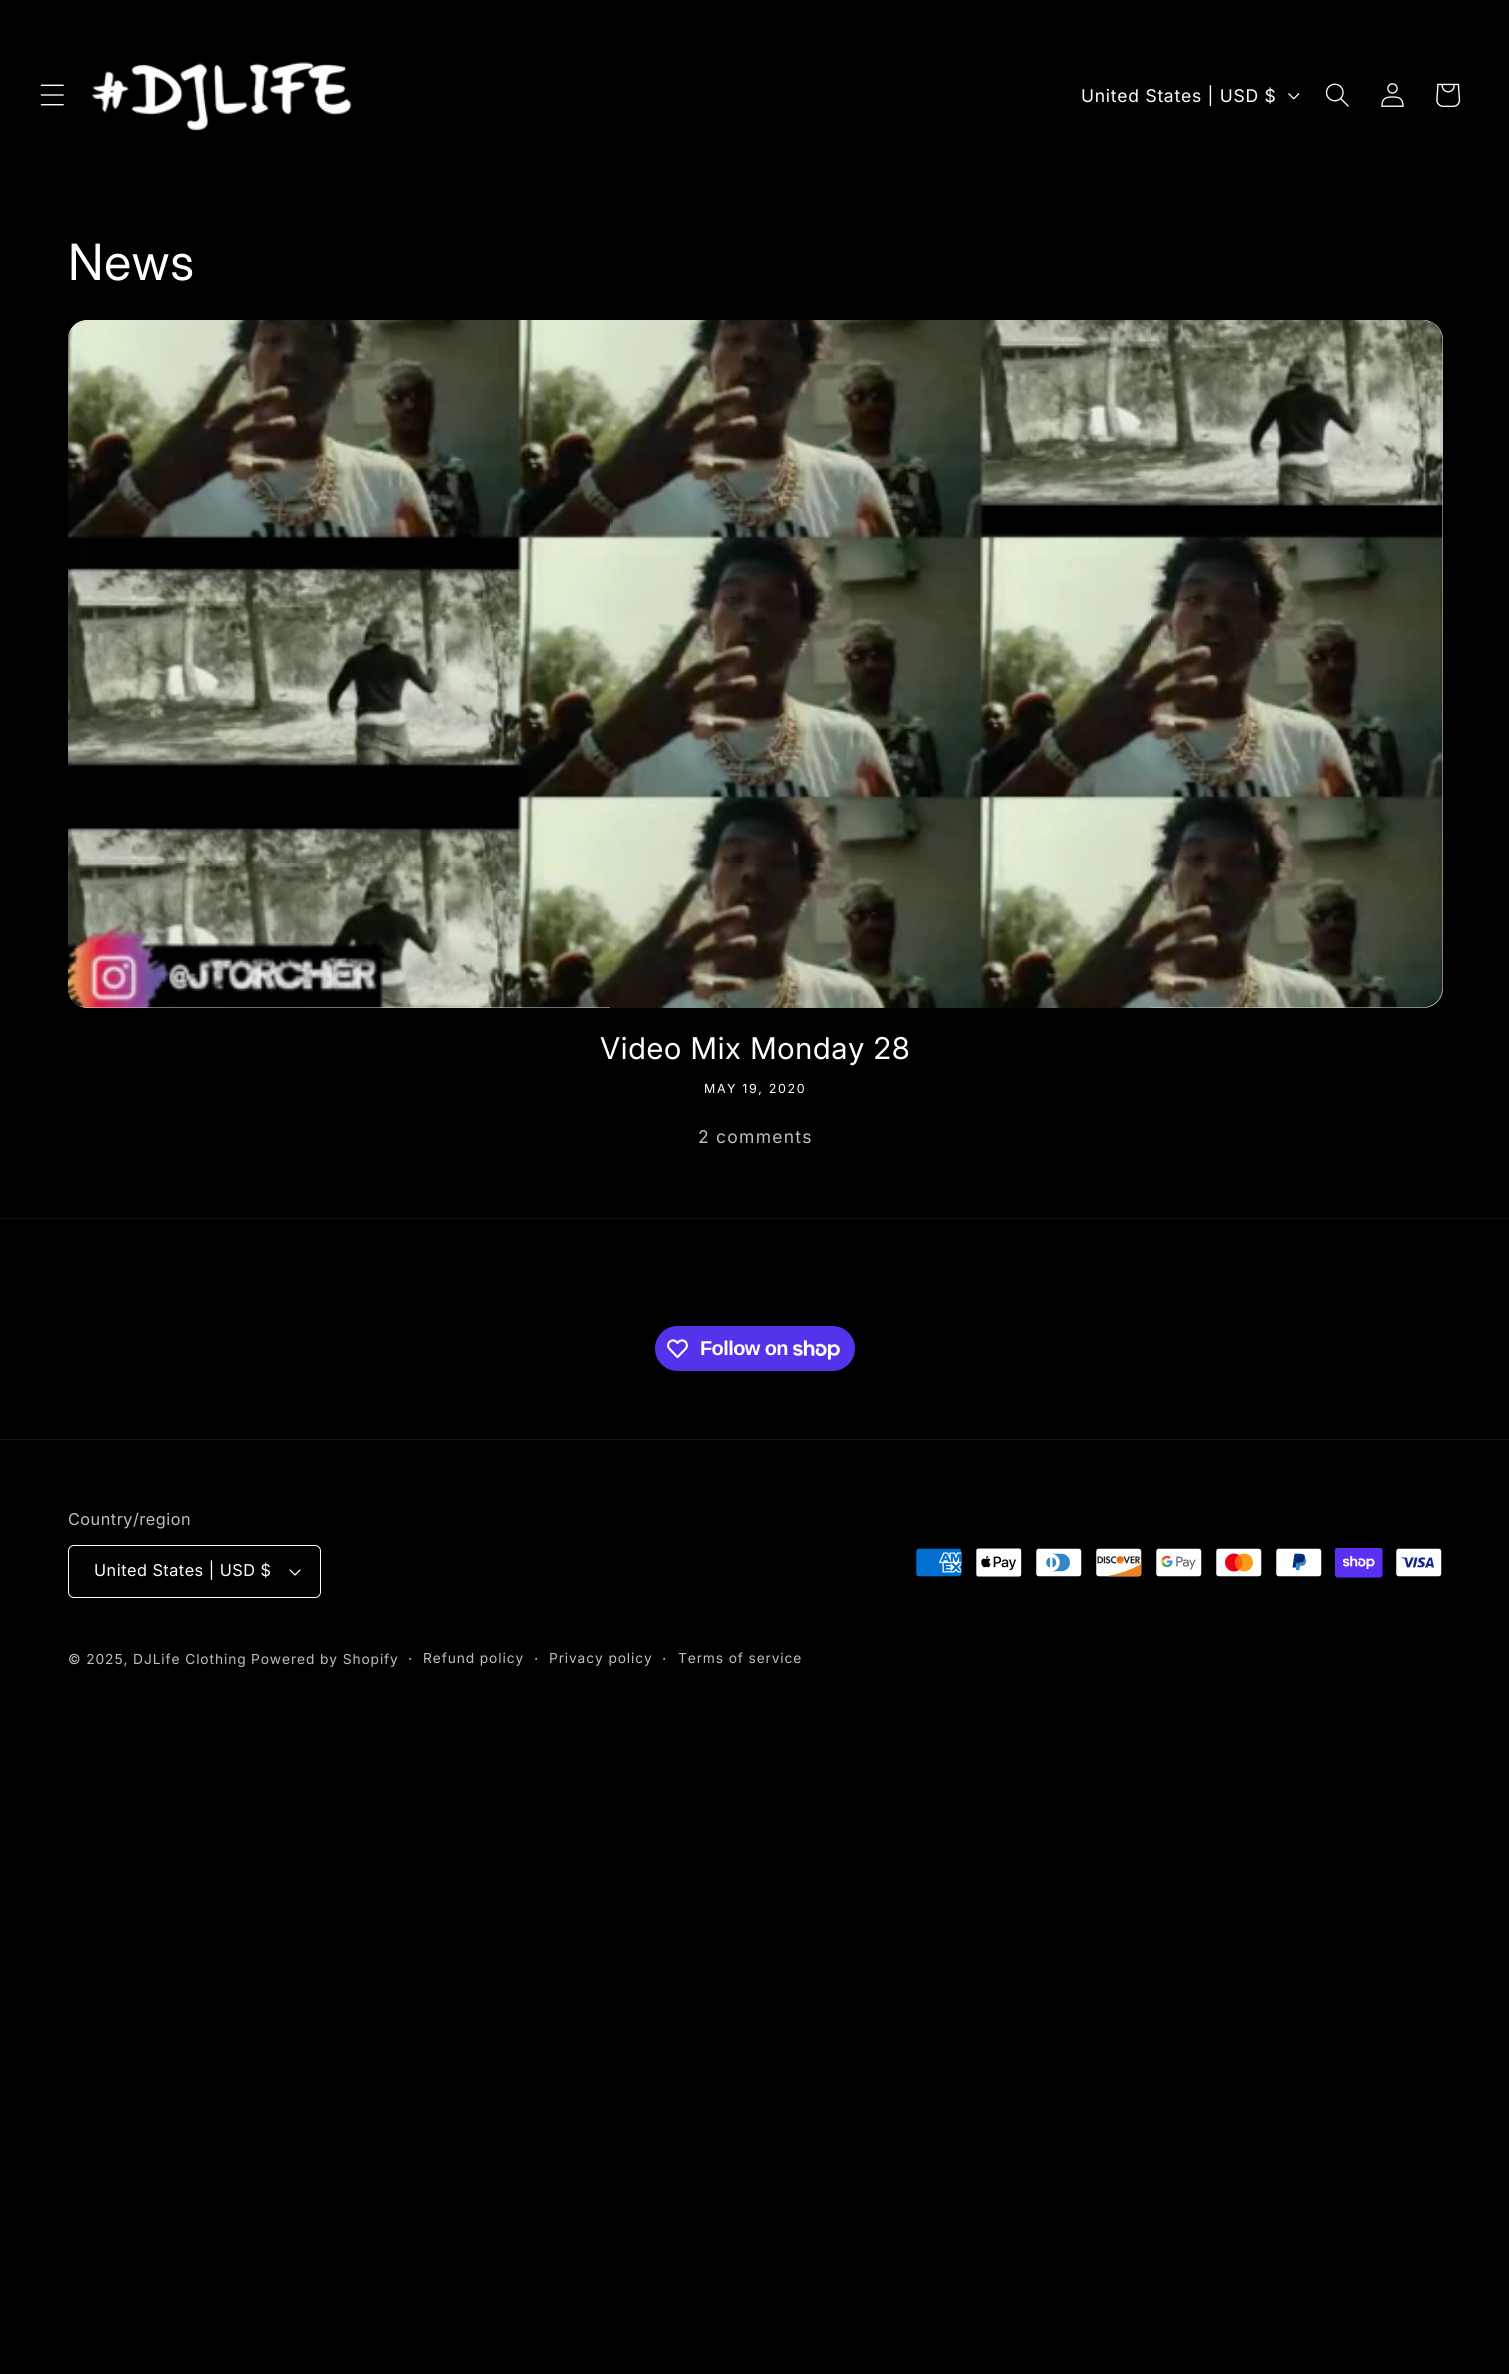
import math
import cairo



def draw_spaced(context, x, y, s, letter, word):
    context.move_to(x, y)
    for ch in s:
        context.show_text(ch)
        context.rel_move_to(letter + word * (ch == ' '), 0)


def rounded_rect(context, x, y, w, h, r):
    context.new_sub_path()
    for i, (u, v) in enumerate([(x + w - r, y + h - r), (x + r, y + h - r), (x + r, y + r), (x + w - r, y + r)]):
        context.arc(u, v, r, i * math.pi / 2, (i + 1) * math.pi / 2)
    context.close_path()


def draw_image(context, path, x, y, w, h):
    context.save()
    context.set_source_surface(cairo.ImageSurface.create_from_png(path), x, y)
    context.rectangle(x, y, w, h)
    context.fill()
    context.restore()


def draw(context):
    context.set_source_rgb(0, 0, 0)
    context.paint()
    draw_image(context, "images/1.png", 40, 84, 24, 22)
    draw_image(context, "images/2.png", 92, 62, 260, 69)
    draw_image(context, "images/3.png", 1288, 93, 12, 7)
    draw_image(context, "images/4.png", 1325, 83, 24, 24)
    draw_image(context, "images/5.png", 1381, 83, 23, 24)
    draw_image(context, "images/6.png", 1436, 83, 25, 24)
    context.set_source_rgb(243 / 255, 243 / 255, 243 / 255)
    rounded_rect(context, 68, 320, 1375, 688, 20)
    context.fill()
    context.set_source_rgba(18 / 255, 18 / 255, 18 / 255, 0.1)
    rounded_rect(context, 68, 320, 1375, 688, 20)
    context.fill()
    draw_image(context, "images/7.png", 68, 320, 1375, 688)
    context.set_source_rgb(20 / 255, 20 / 255, 20 / 255)
    context.rectangle(0, 1218, 1509, 1)
    context.fill()
    context.set_source_rgb(84 / 255, 51 / 255, 235 / 255)
    rounded_rect(context, 655, 1326, 200, 45, 22.5)
    context.fill()
    draw_image(context, "images/8.png", 667, 1339, 21, 20)
    draw_image(context, "images/9.png", 793, 1340, 47, 20)
    context.set_source_rgb(20 / 255, 20 / 255, 20 / 255)
    context.rectangle(0, 1439, 1509, 1)
    context.fill()
    draw_image(context, "images/10.png", 289, 1569, 12, 7)
    rounded_rect(context, 68.5, 1545.5, 252, 52, 5.5)
    context.set_source_rgb(1, 1, 1)
    context.set_line_width(1)
    context.stroke()
    draw_image(context, "images/11.png", 916, 1548, 46, 29)
    draw_image(context, "images/12.png", 976, 1548, 46, 29)
    draw_image(context, "images/13.png", 1036, 1548, 46, 29)
    draw_image(context, "images/14.png", 1096, 1548, 46, 29)
    draw_image(context, "images/15.png", 1156, 1548, 46, 29)
    draw_image(context, "images/16.png", 1216, 1548, 46, 29)
    draw_image(context, "images/17.png", 1276, 1548, 46, 29)
    draw_image(context, "images/18.png", 1335, 1548, 48, 30)
    draw_image(context, "images/19.png", 1396, 1548, 46, 29)
    context.select_font_face("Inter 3")
    context.set_font_size(17.5)
    draw_spaced(context, 1081, 102, "United States | USD $", 0.75, 0)
    context.select_font_face("Inter")
    context.set_font_size(50)
    draw_spaced(context, 68, 280, "News", 0.75, 0)
    context.select_font_face("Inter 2")
    context.set_font_size(30)
    draw_spaced(context, 600, 1059, "Video Mix Monday 28", 0.75, 0)
    context.select_font_face("Inter 3")
    context.set_font_size(12.5)
    draw_spaced(context, 704, 1093, "MAY 19, 2020", 1.6, 0)
    context.set_font_size(17.5)
    context.set_source_rgb(191 / 255, 191 / 255, 191 / 255)
    draw_spaced(context, 698, 1143, "2 comments", 1.25, 0)
    context.select_font_face("Liberation Sans", cairo.FontSlant.NORMAL, cairo.FontWeight.BOLD)
    context.set_font_size(20)
    context.set_source_rgb(1, 1, 1)
    draw_spaced(context, 700, 1355, "Follow on", -0.6, 0)
    context.select_font_face("Inter 3")
    context.set_font_size(16.25)
    context.set_source_rgb(191 / 255, 191 / 255, 191 / 255)
    draw_spaced(context, 68, 1525, "Country/region", 0.5, 0)
    context.set_source_rgb(1, 1, 1)
    draw_spaced(context, 94, 1576, "United States | USD $", 0.5, 0)
    context.set_font_size(13.75)
    context.set_source_rgb(191 / 255, 191 / 255, 191 / 255)
    draw_spaced(context, 68, 1664, "© 2025, DJLife Clothing", 0.9, 0)
    draw_spaced(context, 251, 1664, "Powered by Shopify", 0.9, 0)
    context.set_font_size(15)
    draw_spaced(context, 408, 1664, "·", 0.9, 0)
    context.set_font_size(13.75)
    draw_spaced(context, 423, 1663, "Refund policy", 0.9, 0)
    context.set_font_size(15)
    draw_spaced(context, 534, 1664, "·", 0.9, 0)
    context.set_font_size(13.75)
    draw_spaced(context, 549, 1663, "Privacy policy", 0.9, 0)
    context.set_font_size(15)
    draw_spaced(context, 662, 1664, "·", 0.9, 0)
    context.set_font_size(13.75)
    draw_spaced(context, 678, 1663, "Terms of service", 0.9, 0)


surface = cairo.ImageSurface(cairo.Format.RGB24, 1509, 2374)
context = cairo.Context(surface)
options = cairo.FontOptions()
options.set_hint_metrics(cairo.HintMetrics.OFF)
options.set_hint_style(cairo.HintStyle.NONE)
context.set_font_options(options)
context.set_miter_limit(4)
draw(context)
surface.write_to_png("out.png")
